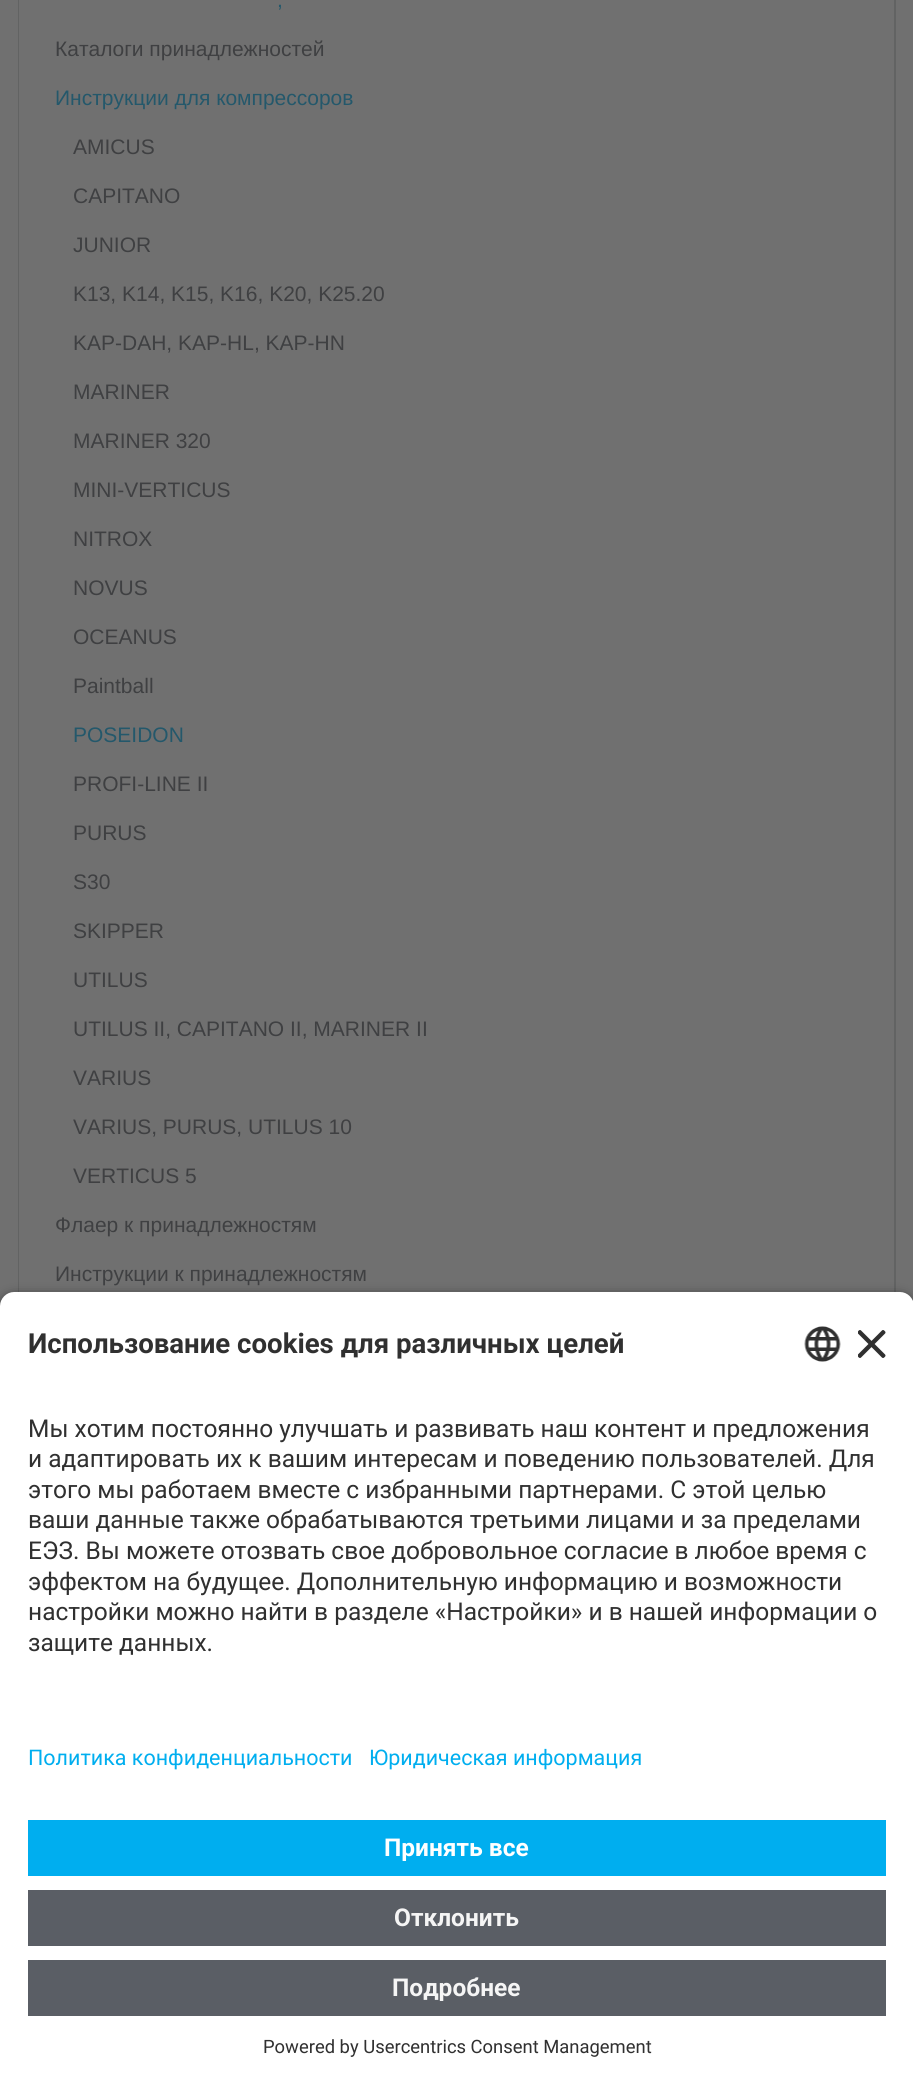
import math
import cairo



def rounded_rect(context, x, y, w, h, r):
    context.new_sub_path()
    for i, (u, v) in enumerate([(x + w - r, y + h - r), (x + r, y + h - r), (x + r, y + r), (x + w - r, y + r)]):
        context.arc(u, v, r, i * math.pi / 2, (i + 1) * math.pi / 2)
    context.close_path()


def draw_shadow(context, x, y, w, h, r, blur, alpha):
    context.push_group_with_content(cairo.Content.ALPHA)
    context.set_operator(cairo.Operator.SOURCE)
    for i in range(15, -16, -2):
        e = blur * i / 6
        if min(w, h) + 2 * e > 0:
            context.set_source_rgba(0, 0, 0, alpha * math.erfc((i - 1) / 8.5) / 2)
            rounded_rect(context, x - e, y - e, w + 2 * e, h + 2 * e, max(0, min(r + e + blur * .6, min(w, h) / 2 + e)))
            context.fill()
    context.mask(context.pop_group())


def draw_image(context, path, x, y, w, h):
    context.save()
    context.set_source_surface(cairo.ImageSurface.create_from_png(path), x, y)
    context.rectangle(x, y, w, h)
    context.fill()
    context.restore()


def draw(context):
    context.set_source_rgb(112 / 255, 112 / 255, 112 / 255)
    context.paint()
    context.set_source_rgb(98 / 255, 99 / 255, 99 / 255)
    context.rectangle(894, 0, 2, 1292)
    context.fill()
    context.rectangle(18, 0, 1, 1292)
    context.fill()
    context.set_source_rgb(0, 0, 0)
    draw_shadow(context, 0, 1297, 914, 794, 14, 6, 0.8)
    context.set_source_rgb(1, 1, 1)
    context.new_path()
    context.move_to(14, 1292)
    context.line_to(900, 1292)
    context.curve_to(907.5, 1292, 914, 1298.5, 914, 1306)
    context.line_to(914, 1719)
    context.line_to(0, 1719)
    context.line_to(0, 1306)
    context.curve_to(0, 1298.5, 6.5, 1292, 14, 1292)
    context.close_path()
    context.fill()
    draw_image(context, "images/1.png", 804, 1326, 37, 36)
    draw_image(context, "images/2.png", 858, 1330, 28, 28)
    context.rectangle(0, 1719, 913, 367)
    context.fill()
    context.set_source_rgb(0, 174 / 255, 239 / 255)
    context.rectangle(28, 1820, 858, 56)
    context.fill()
    context.set_source_rgb(90 / 255, 94 / 255, 101 / 255)
    context.rectangle(28, 1890, 858, 56)
    context.fill()
    context.rectangle(28, 1960, 858, 56)
    context.fill()
    context.select_font_face("Liberation Sans")
    context.set_font_size(21)
    context.set_source_rgb(36 / 255, 88 / 255, 107 / 255)
    context.move_to(277, 7)
    context.show_text(",")
    context.set_source_rgb(63 / 255, 64 / 255, 66 / 255)
    context.move_to(55, 56)
    context.show_text("Каталоги принадлежностей")
    context.set_source_rgb(36 / 255, 88 / 255, 107 / 255)
    context.move_to(55, 105)
    context.show_text("Инструкции для компрессоров")
    context.set_source_rgb(63 / 255, 64 / 255, 66 / 255)
    context.move_to(73, 154)
    context.show_text("AMICUS")
    context.move_to(73, 203)
    context.show_text("CAPITANO")
    context.move_to(73, 252)
    context.show_text("JUNIOR")
    context.move_to(73, 301)
    context.show_text("K13, K14, K15, K16, K20, K25.20")
    context.move_to(73, 350)
    context.show_text("KAP-DAH, KAP-HL, KAP-HN")
    context.move_to(73, 399)
    context.show_text("MARINER")
    context.move_to(73, 448)
    context.show_text("MARINER 320")
    context.move_to(73, 497)
    context.show_text("MINI-VERTICUS")
    context.move_to(73, 546)
    context.show_text("NITROX")
    context.move_to(73, 595)
    context.show_text("NOVUS")
    context.move_to(73, 644)
    context.show_text("OCEANUS")
    context.move_to(73, 693)
    context.show_text("Paintball")
    context.set_source_rgb(36 / 255, 88 / 255, 107 / 255)
    context.move_to(73, 742)
    context.show_text("POSEIDON")
    context.set_source_rgb(63 / 255, 64 / 255, 66 / 255)
    context.move_to(73, 791)
    context.show_text("PROFI-LINE II")
    context.move_to(73, 840)
    context.show_text("PURUS")
    context.move_to(73, 889)
    context.show_text("S30")
    context.move_to(73, 938)
    context.show_text("SKIPPER")
    context.move_to(73, 987)
    context.show_text("UTILUS")
    context.move_to(73, 1036)
    context.show_text("UTILUS II, CAPITANO II, MARINER II")
    context.move_to(73, 1085)
    context.show_text("VARIUS")
    context.move_to(73, 1134)
    context.show_text("VARIUS, PURUS, UTILUS 10")
    context.move_to(73, 1183)
    context.show_text("VERTICUS 5")
    context.move_to(55, 1232)
    context.show_text("Флаер к принадлежностям")
    context.move_to(55, 1281)
    context.show_text("Инструкции к принадлежностям")
    context.select_font_face("Roboto", cairo.FontSlant.NORMAL, cairo.FontWeight.BOLD)
    context.set_font_size(27.6)
    context.set_source_rgb(48 / 255, 48 / 255, 48 / 255)
    context.move_to(28, 1353)
    context.show_text("Использование cookies для различных целей")
    context.select_font_face("Roboto")
    context.set_font_size(24.5)
    context.move_to(28, 1437)
    context.show_text("Мы хотим постоянно улучшать и развивать наш контент и предложения")
    context.move_to(28, 1467)
    context.show_text("и адаптировать их к вашим интересам и поведению пользователей. Для")
    context.move_to(28, 1498)
    context.show_text("этого мы работаем вместе с избранными партнерами. С этой целью")
    context.move_to(28, 1528)
    context.show_text("ваши данные также обрабатываются третьими лицами и за пределами")
    context.move_to(28, 1559)
    context.show_text("ЕЭЗ. Вы можете отозвать свое добровольное согласие в любое время с")
    context.move_to(28, 1590)
    context.show_text("эффектом на будущее. Дополнительную информацию и возможности")
    context.move_to(28, 1620)
    context.show_text("настройки можно найти в разделе «Настройки» и в нашей информации о")
    context.move_to(28, 1651)
    context.show_text("защите данных.")
    context.set_font_size(21.5)
    context.set_source_rgb(0, 174 / 255, 239 / 255)
    context.move_to(28, 1765)
    context.show_text("Политика конфиденциальности")
    context.move_to(369, 1765)
    context.show_text("Юридическая информация")
    context.select_font_face("Roboto", cairo.FontSlant.NORMAL, cairo.FontWeight.BOLD)
    context.set_font_size(24.5)
    context.set_source_rgb(1, 1, 1)
    context.move_to(384, 1856)
    context.show_text("Принять все")
    context.set_source_rgb(245 / 255, 245 / 255, 245 / 255)
    context.move_to(394, 1926)
    context.show_text("Отклонить")
    context.move_to(392, 1996)
    context.show_text("Подробнее")
    context.select_font_face("Roboto")
    context.set_font_size(18.4)
    context.set_source_rgb(48 / 255, 48 / 255, 48 / 255)
    context.move_to(263, 2053)
    context.show_text("Powered by Usercentrics Consent Management")


surface = cairo.ImageSurface(cairo.Format.RGB24, 913, 2086)
context = cairo.Context(surface)
options = cairo.FontOptions()
options.set_hint_metrics(cairo.HintMetrics.OFF)
options.set_hint_style(cairo.HintStyle.NONE)
context.set_font_options(options)
context.set_miter_limit(4)
draw(context)
surface.write_to_png("out.png")
